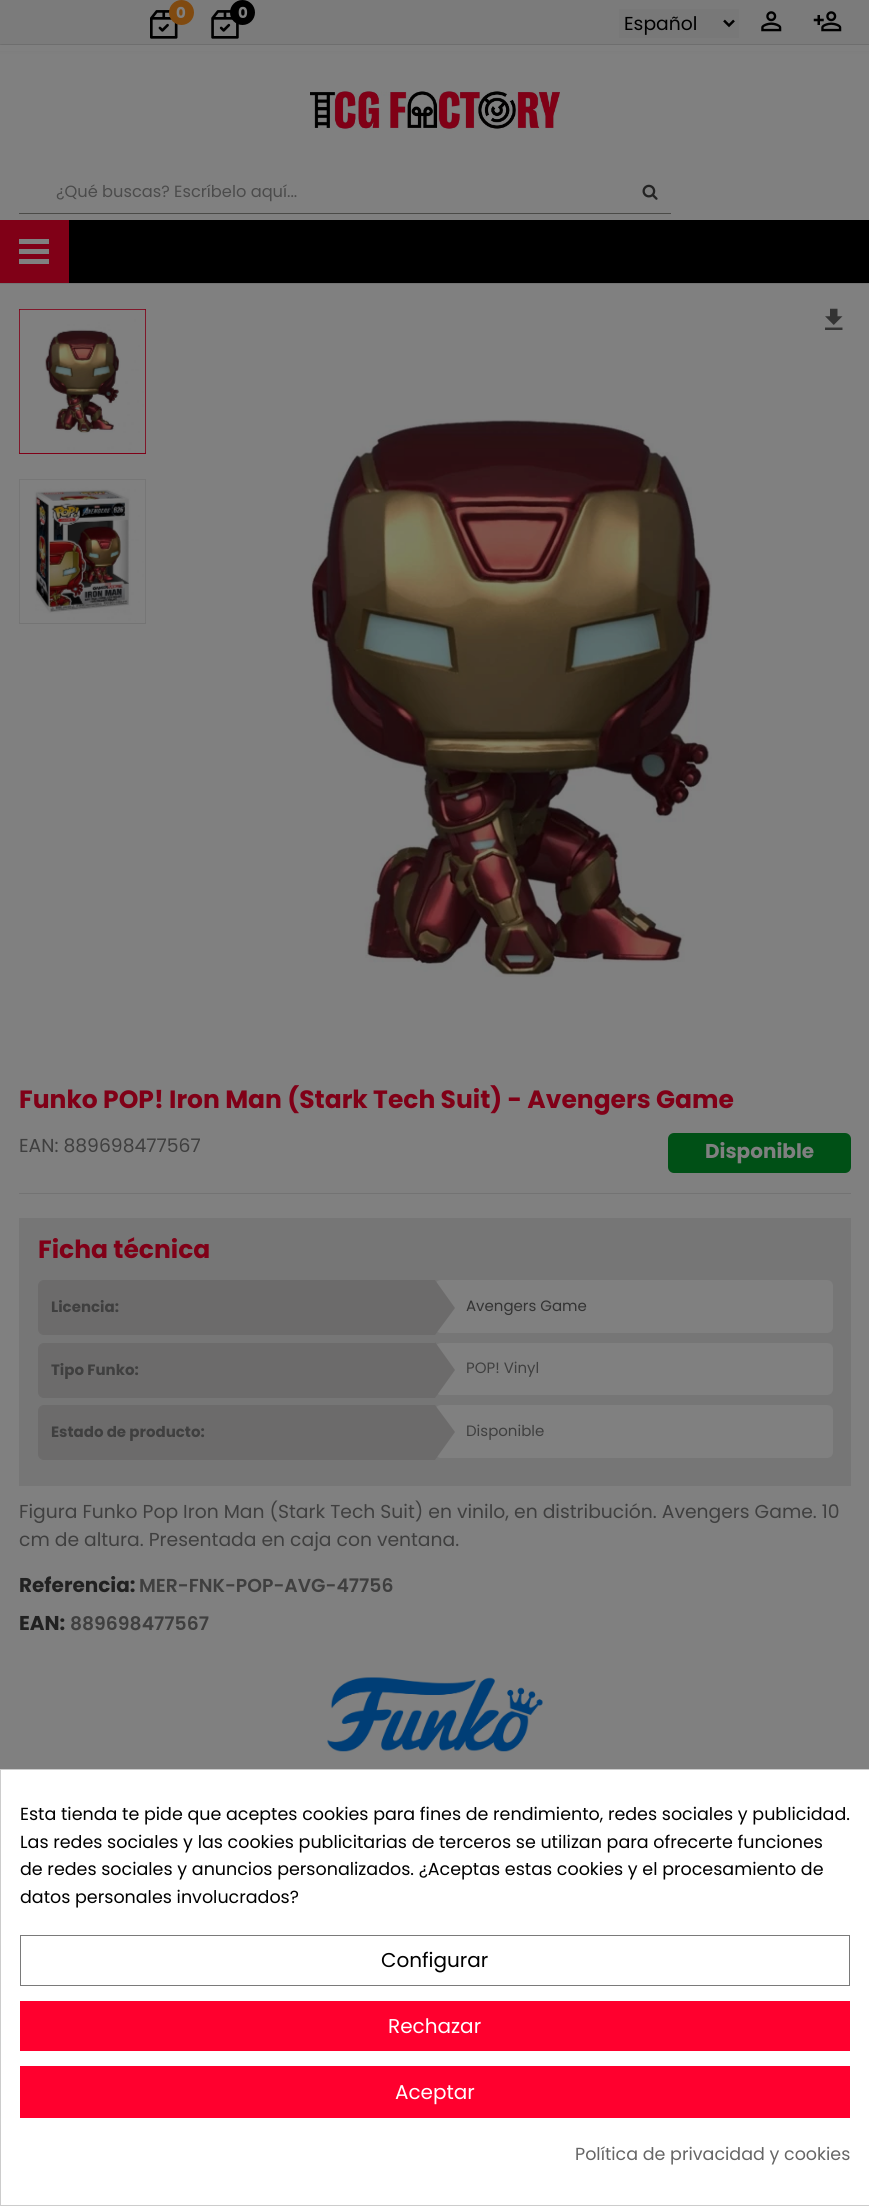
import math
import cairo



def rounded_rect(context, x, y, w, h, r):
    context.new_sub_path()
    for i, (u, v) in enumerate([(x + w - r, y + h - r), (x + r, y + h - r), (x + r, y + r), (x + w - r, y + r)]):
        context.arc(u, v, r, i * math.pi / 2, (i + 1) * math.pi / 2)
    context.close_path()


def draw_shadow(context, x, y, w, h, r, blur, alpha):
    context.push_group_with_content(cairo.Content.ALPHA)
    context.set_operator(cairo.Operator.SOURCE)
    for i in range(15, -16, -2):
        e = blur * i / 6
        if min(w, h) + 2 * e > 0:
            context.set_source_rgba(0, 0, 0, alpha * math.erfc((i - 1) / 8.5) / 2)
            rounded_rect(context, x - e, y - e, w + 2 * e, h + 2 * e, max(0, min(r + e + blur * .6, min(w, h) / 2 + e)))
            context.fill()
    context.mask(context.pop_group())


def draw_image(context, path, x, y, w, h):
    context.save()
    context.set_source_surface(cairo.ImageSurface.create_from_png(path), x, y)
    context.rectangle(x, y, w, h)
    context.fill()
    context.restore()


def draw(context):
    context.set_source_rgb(128 / 255, 128 / 255, 128 / 255)
    context.paint()
    context.set_source_rgb(0, 0, 0)
    draw_shadow(context, 0, 0, 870, 44, 0, 4.5, 0.3)
    context.set_source_rgb(128 / 255, 128 / 255, 128 / 255)
    context.rectangle(0, 45, 869, 6)
    context.fill()
    context.set_source_rgb(123 / 255, 123 / 255, 123 / 255)
    context.rectangle(0, 0, 869, 44)
    context.fill()
    draw_image(context, "images/1.png", 150, 10, 28, 29)
    context.set_source_rgb(128 / 255, 74 / 255, 16 / 255)
    context.arc(181.5, 12.5, 12.5, 0, 2 * math.pi)
    context.fill()
    draw_image(context, "images/2.png", 211, 10, 28, 29)
    context.set_source_rgb(0, 0, 0)
    context.arc(242.5, 12.5, 12.5, 0, 2 * math.pi)
    context.fill()
    draw_image(context, "images/3.png", 310, 91, 250, 38)
    context.set_source_rgb(75 / 255, 75 / 255, 72 / 255)
    context.rectangle(19, 213, 652, 1)
    context.fill()
    draw_image(context, "images/4.png", 642, 184, 16, 16)
    context.set_source_rgb(120 / 255, 120 / 255, 120 / 255)
    context.rectangle(619, 9, 120, 29)
    context.fill()
    context.new_path()
    context.move_to(724, 20.5)
    context.line_to(729, 25.5)
    context.line_to(734, 20.5)
    context.set_source_rgb(0, 0, 0)
    context.set_line_width(2.5)
    context.stroke()
    draw_image(context, "images/5.png", 761, 11, 21, 21)
    draw_image(context, "images/6.png", 813, 11, 29, 21)
    context.set_source_rgb(116 / 255, 116 / 255, 116 / 255)
    context.rectangle(0, 283, 869, 1)
    context.fill()
    context.set_source_rgb(0, 0, 0)
    context.rectangle(69, 220, 800, 63)
    context.fill()
    context.set_source_rgb(128 / 255, 0, 23 / 255)
    context.rectangle(0, 220, 69, 63)
    context.fill()
    context.set_source_rgb(128 / 255, 128 / 255, 128 / 255)
    context.rectangle(19, 239, 30, 5)
    context.fill()
    context.rectangle(19, 249, 30, 5)
    context.fill()
    context.rectangle(19, 259, 30, 5)
    context.fill()
    context.rectangle(19.5, 309.5, 126, 144)
    context.set_source_rgb(128 / 255, 0, 23 / 255)
    context.set_line_width(1)
    context.stroke()
    draw_image(context, "images/7.png", 19, 309, 127, 144)
    context.rectangle(19.5, 479.5, 126, 144)
    context.set_source_rgb(116 / 255, 116 / 255, 116 / 255)
    context.stroke()
    draw_image(context, "images/8.png", 19, 479, 127, 143)
    draw_image(context, "images/9.png", 825, 308, 18, 22)
    draw_image(context, "images/10.png", 311, 419, 401, 558)
    context.set_source_rgb(0, 80 / 255, 22 / 255)
    rounded_rect(context, 668, 1133, 183, 40, 6)
    context.fill()
    context.set_source_rgb(115 / 255, 115 / 255, 115 / 255)
    context.rectangle(19, 1193, 832, 1)
    context.fill()
    context.set_source_rgb(118 / 255, 118 / 255, 118 / 255)
    context.rectangle(19, 1218, 832, 268)
    context.fill()
    context.set_source_rgb(108 / 255, 107 / 255, 107 / 255)
    context.new_path()
    context.move_to(44, 1280.5)
    context.line_to(434.5, 1280.5)
    context.line_to(434.5, 1334.5)
    context.line_to(44, 1334.5)
    context.curve_to(41, 1334.5, 38.5, 1332, 38.5, 1329)
    context.line_to(38.5, 1286)
    context.curve_to(38.5, 1283, 41, 1280.5, 44, 1280.5)
    context.close_path()
    context.fill_preserve()
    context.stroke()
    context.set_source_rgb(128 / 255, 128 / 255, 128 / 255)
    rounded_rect(context, 435, 1280, 398, 53, 6)
    context.fill()
    context.set_source_rgb(108 / 255, 107 / 255, 107 / 255)
    context.new_path()
    context.move_to(435, 1335)
    context.line_to(435, 1280)
    context.line_to(455, 1308)
    context.close_path()
    context.fill()
    context.new_path()
    context.move_to(44, 1343.5)
    context.line_to(434.5, 1343.5)
    context.line_to(434.5, 1397.5)
    context.line_to(44, 1397.5)
    context.curve_to(41, 1397.5, 38.5, 1395, 38.5, 1392)
    context.line_to(38.5, 1349)
    context.curve_to(38.5, 1346, 41, 1343.5, 44, 1343.5)
    context.close_path()
    context.fill_preserve()
    context.stroke()
    context.set_source_rgb(128 / 255, 128 / 255, 128 / 255)
    rounded_rect(context, 435, 1343, 398, 52, 6)
    context.fill()
    context.set_source_rgb(108 / 255, 107 / 255, 107 / 255)
    context.new_path()
    context.move_to(435, 1398)
    context.line_to(435, 1342)
    context.line_to(455, 1370)
    context.close_path()
    context.fill()
    context.new_path()
    context.move_to(44, 1405.5)
    context.line_to(434.5, 1405.5)
    context.line_to(434.5, 1459.5)
    context.line_to(44, 1459.5)
    context.curve_to(41, 1459.5, 38.5, 1457, 38.5, 1454)
    context.line_to(38.5, 1411)
    context.curve_to(38.5, 1408, 41, 1405.5, 44, 1405.5)
    context.close_path()
    context.fill_preserve()
    context.stroke()
    context.set_source_rgb(128 / 255, 128 / 255, 128 / 255)
    rounded_rect(context, 435, 1405, 398, 53, 6)
    context.fill()
    context.set_source_rgb(108 / 255, 107 / 255, 107 / 255)
    context.new_path()
    context.move_to(435, 1460)
    context.line_to(435, 1405)
    context.line_to(455, 1432)
    context.close_path()
    context.fill()
    draw_image(context, "images/11.png", 327, 1677, 216, 75)
    context.set_source_rgb(1, 1, 1)
    context.rectangle(0.5, 1769.5, 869, 436)
    context.fill_preserve()
    context.set_source_rgb(204 / 255, 204 / 255, 204 / 255)
    context.stroke()
    context.rectangle(20.5, 1935.5, 829, 50)
    context.set_source_rgb(122 / 255, 122 / 255, 122 / 255)
    context.stroke()
    context.set_source_rgb(1, 0, 46 / 255)
    context.rectangle(20, 2001, 830, 50)
    context.fill()
    context.rectangle(20, 2066, 830, 52)
    context.fill()
    context.select_font_face("Poppins", cairo.FontSlant.NORMAL, cairo.FontWeight.BOLD)
    context.set_font_size(15)
    context.set_source_rgb(128 / 255, 128 / 255, 128 / 255)
    context.move_to(176, 18)
    context.show_text("0")
    context.move_to(238, 18)
    context.show_text("0")
    context.select_font_face("Poppins")
    context.set_font_size(16.25)
    context.set_source_rgb(75 / 255, 75 / 255, 75 / 255)
    context.move_to(56, 197)
    context.show_text("¿Qué buscas? Escríbelo aquí...")
    context.set_font_size(18.75)
    context.set_source_rgb(0, 0, 0)
    context.move_to(624, 30)
    context.show_text("Español")
    context.select_font_face("Poppins", cairo.FontSlant.NORMAL, cairo.FontWeight.BOLD)
    context.set_font_size(25)
    context.set_source_rgb(128 / 255, 0, 23 / 255)
    context.move_to(19, 1108)
    context.show_text("Funko POP! Iron Man (Stark Tech Suit) - Avengers Game")
    context.select_font_face("Poppins")
    context.set_font_size(18.75)
    context.set_source_rgb(63 / 255, 63 / 255, 63 / 255)
    context.move_to(19, 1152)
    context.show_text("EAN: 889698477567")
    context.select_font_face("Poppins", cairo.FontSlant.NORMAL, cairo.FontWeight.BOLD)
    context.set_font_size(20)
    context.set_source_rgb(128 / 255, 128 / 255, 128 / 255)
    context.move_to(705, 1158)
    context.show_text("Disponible")
    context.set_font_size(25)
    context.set_source_rgb(128 / 255, 0, 23 / 255)
    context.move_to(38, 1258)
    context.show_text("Ficha técnica")
    context.set_font_size(15)
    context.set_source_rgb(63 / 255, 63 / 255, 63 / 255)
    context.move_to(51, 1312)
    context.show_text("Licencia:")
    context.select_font_face("Poppins")
    context.set_source_rgb(51 / 255, 51 / 255, 51 / 255)
    context.move_to(466, 1311)
    context.show_text("Avengers Game")
    context.select_font_face("Poppins", cairo.FontSlant.NORMAL, cairo.FontWeight.BOLD)
    context.set_source_rgb(63 / 255, 63 / 255, 63 / 255)
    context.move_to(51, 1375)
    context.show_text("Tipo Funko:")
    context.select_font_face("Poppins")
    context.move_to(466, 1373)
    context.show_text("POP! Vinyl")
    context.select_font_face("Poppins", cairo.FontSlant.NORMAL, cairo.FontWeight.BOLD)
    context.move_to(51, 1437)
    context.show_text("Estado de producto:")
    context.select_font_face("Poppins")
    context.move_to(466, 1436)
    context.show_text("Disponible")
    context.set_font_size(18.75)
    context.move_to(19, 1518)
    context.show_text("Figura Funko Pop Iron Man (Stark Tech Suit) en vinilo, en distribución. Avengers Game. 10")
    context.move_to(19, 1546)
    context.show_text("cm de altura. Presentada en caja con ventana.")
    context.select_font_face("Poppins", cairo.FontSlant.NORMAL, cairo.FontWeight.BOLD)
    context.set_font_size(20)
    context.set_source_rgb(33 / 255, 33 / 255, 33 / 255)
    context.move_to(19, 1592)
    context.show_text("Referencia:")
    context.select_font_face("Poppins SemiBold")
    context.set_font_size(18.75)
    context.set_source_rgb(63 / 255, 63 / 255, 63 / 255)
    context.move_to(139, 1592)
    context.show_text("MER-FNK-POP-AVG-47756")
    context.select_font_face("Poppins", cairo.FontSlant.NORMAL, cairo.FontWeight.BOLD)
    context.set_font_size(20)
    context.set_source_rgb(33 / 255, 33 / 255, 33 / 255)
    context.move_to(19, 1630)
    context.show_text("EAN:")
    context.select_font_face("Poppins SemiBold")
    context.set_font_size(18.75)
    context.set_source_rgb(63 / 255, 63 / 255, 63 / 255)
    context.move_to(70, 1630)
    context.show_text("889698477567")
    context.select_font_face("Poppins")
    context.set_font_size(17.5)
    context.set_source_rgb(0, 0, 0)
    context.move_to(20, 1820)
    context.show_text("Esta tienda te pide que aceptes cookies para fines de rendimiento, redes sociales y publicidad.")
    context.move_to(20, 1848)
    context.show_text("Las redes sociales y las cookies publicitarias de terceros se utilizan para ofrecerte funciones")
    context.move_to(20, 1875)
    context.show_text("de redes sociales y anuncios personalizados. ¿Aceptas estas cookies y el procesamiento de")
    context.move_to(20, 1903)
    context.show_text("datos personales involucrados?")
    context.set_font_size(20)
    context.move_to(381, 1967)
    context.show_text("Configurar")
    context.set_source_rgb(1, 1, 1)
    context.move_to(388, 2033)
    context.show_text("Rechazar")
    context.move_to(395, 2099)
    context.show_text("Aceptar")
    context.set_font_size(17.5)
    context.set_source_rgb(102 / 255, 102 / 255, 102 / 255)
    context.move_to(575, 2160)
    context.show_text("Política de privacidad y cookies")


surface = cairo.ImageSurface(cairo.Format.RGB24, 869, 2206)
context = cairo.Context(surface)
options = cairo.FontOptions()
options.set_hint_metrics(cairo.HintMetrics.OFF)
options.set_hint_style(cairo.HintStyle.NONE)
context.set_font_options(options)
context.set_miter_limit(4)
draw(context)
surface.write_to_png("out.png")
